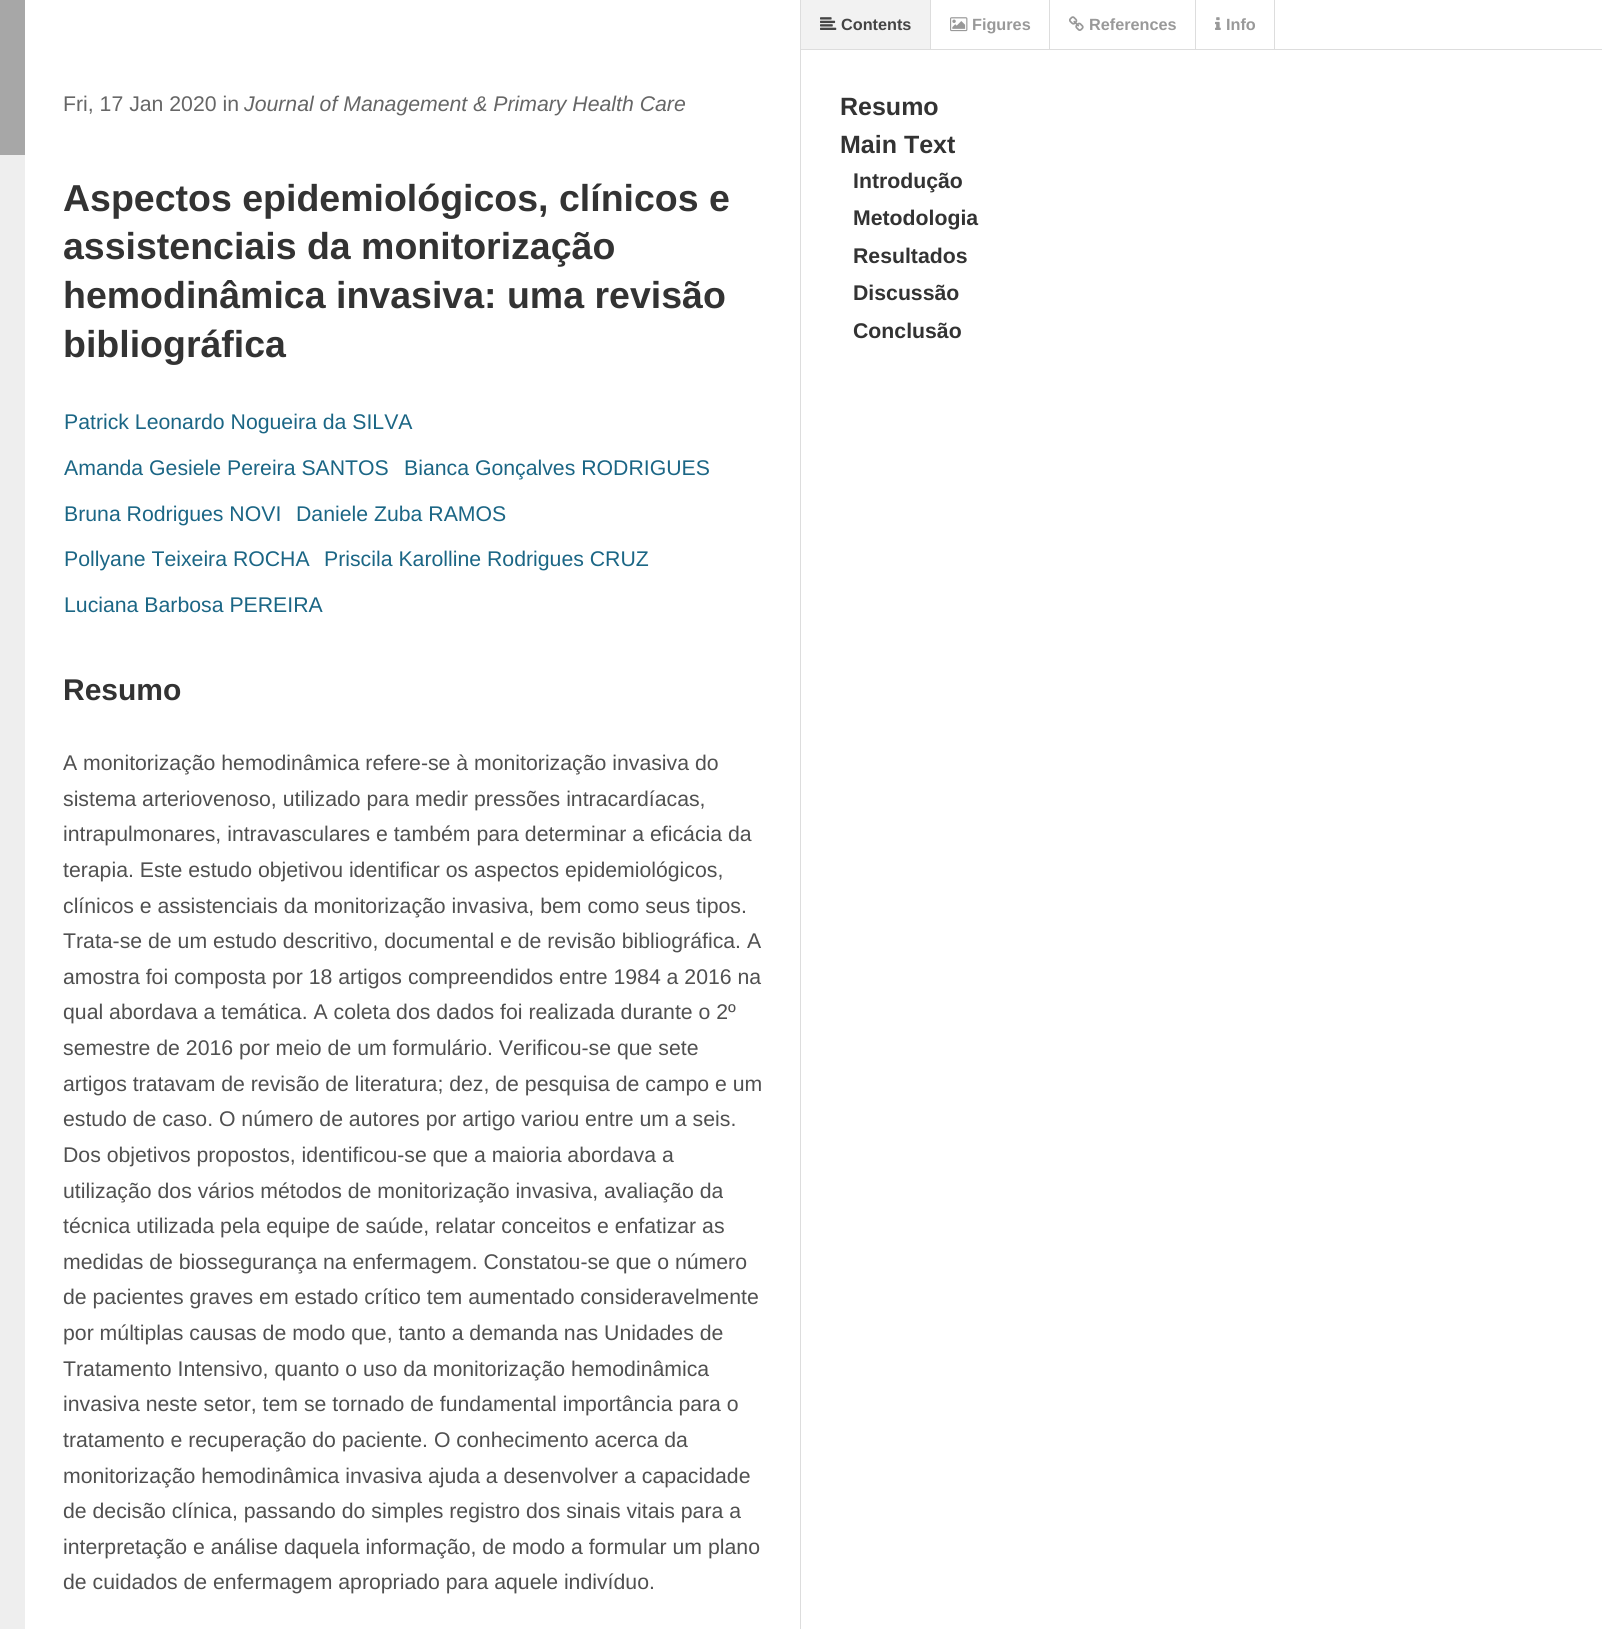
import math
import cairo



def draw_image(context, path, x, y, w, h):
    context.save()
    context.set_source_surface(cairo.ImageSurface.create_from_png(path), x, y)
    context.rectangle(x, y, w, h)
    context.fill()
    context.restore()


def draw(context):
    context.set_source_rgb(1, 1, 1)
    context.paint()
    context.set_source_rgb(221 / 255, 221 / 255, 221 / 255)
    context.rectangle(800, 0, 1, 1629)
    context.fill()
    context.set_source_rgb(238 / 255, 238 / 255, 238 / 255)
    context.rectangle(0, 155, 25, 1474)
    context.fill()
    context.set_source_rgb(167 / 255, 167 / 255, 167 / 255)
    context.rectangle(0, 0, 25, 155)
    context.fill()
    context.set_source_rgb(221 / 255, 221 / 255, 221 / 255)
    context.rectangle(801, 49, 801, 1)
    context.fill()
    context.set_source_rgb(242 / 255, 242 / 255, 242 / 255)
    context.rectangle(801, 0, 129, 49)
    context.fill()
    context.save()
    context.rectangle(801, 0, 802, 49)
    context.clip()
    context.set_source_rgb(221 / 255, 221 / 255, 221 / 255)
    context.new_path()
    context.move_to(931, 0)
    context.line_to(931, 54)
    context.line_to(930, 50)
    context.line_to(930, 0)
    context.close_path()
    context.fill()
    context.restore()
    draw_image(context, "images/1.png", 820, 17, 17, 13)
    context.set_source_rgb(221 / 255, 221 / 255, 221 / 255)
    context.rectangle(1049, 0, 1, 49)
    context.fill()
    draw_image(context, "images/2.png", 950, 17, 18, 15)
    context.rectangle(1195, 0, 1, 49)
    context.fill()
    draw_image(context, "images/3.png", 1069, 16, 15, 15)
    context.rectangle(1274, 0, 1, 49)
    context.fill()
    draw_image(context, "images/4.png", 1215, 17, 6, 13)
    context.select_font_face("Liberation Sans")
    context.set_font_size(21.25)
    context.set_source_rgb(102 / 255, 102 / 255, 102 / 255)
    context.move_to(63, 111)
    context.show_text("Fri, 17 Jan 2020 in")
    context.select_font_face("Liberation Sans", cairo.FontSlant.ITALIC)
    context.move_to(244, 111)
    context.show_text("Journal of Management & Primary Health Care")
    context.select_font_face("Liberation Sans", cairo.FontSlant.NORMAL, cairo.FontWeight.BOLD)
    context.set_font_size(37.5)
    context.set_source_rgb(51 / 255, 51 / 255, 51 / 255)
    context.move_to(63, 211)
    context.show_text("Aspectos epidemiológicos, clínicos e")
    context.move_to(63, 259)
    context.show_text("assistenciais da monitorização")
    context.move_to(63, 308)
    context.show_text("hemodinâmica invasiva: uma revisão")
    context.move_to(63, 357)
    context.show_text("bibliográfica")
    context.select_font_face("Liberation Sans")
    context.set_font_size(21.25)
    context.set_source_rgb(27 / 255, 102 / 255, 133 / 255)
    context.move_to(64, 429)
    context.show_text("Patrick Leonardo Nogueira da SILVA")
    context.move_to(64, 475)
    context.show_text("Amanda Gesiele Pereira SANTOS")
    context.move_to(404, 475)
    context.show_text("Bianca Gonçalves RODRIGUES")
    context.move_to(64, 521)
    context.show_text("Bruna Rodrigues NOVI")
    context.move_to(296, 521)
    context.show_text("Daniele Zuba RAMOS")
    context.move_to(64, 566)
    context.show_text("Pollyane Teixeira ROCHA")
    context.move_to(324, 566)
    context.show_text("Priscila Karolline Rodrigues CRUZ")
    context.move_to(64, 612)
    context.show_text("Luciana Barbosa PEREIRA")
    context.select_font_face("Liberation Sans", cairo.FontSlant.NORMAL, cairo.FontWeight.BOLD)
    context.set_font_size(30)
    context.set_source_rgb(51 / 255, 51 / 255, 51 / 255)
    context.move_to(63, 700)
    context.show_text("Resumo")
    context.select_font_face("Liberation Sans")
    context.set_font_size(21.25)
    context.set_source_rgb(80 / 255, 80 / 255, 80 / 255)
    context.move_to(63, 770)
    context.show_text("A monitorização hemodinâmica refere-se à monitorização invasiva do")
    context.move_to(63, 806)
    context.show_text("sistema arteriovenoso, utilizado para medir pressões intracardíacas,")
    context.move_to(63, 841)
    context.show_text("intrapulmonares, intravasculares e também para determinar a eficácia da")
    context.move_to(63, 877)
    context.show_text("terapia. Este estudo objetivou identificar os aspectos epidemiológicos,")
    context.move_to(63, 913)
    context.show_text("clínicos e assistenciais da monitorização invasiva, bem como seus tipos.")
    context.move_to(63, 948)
    context.show_text("Trata-se de um estudo descritivo, documental e de revisão bibliográfica. A")
    context.move_to(63, 984)
    context.show_text("amostra foi composta por 18 artigos compreendidos entre 1984 a 2016 na")
    context.move_to(63, 1019)
    context.show_text("qual abordava a temática. A coleta dos dados foi realizada durante o 2º")
    context.move_to(63, 1055)
    context.show_text("semestre de 2016 por meio de um formulário. Verificou-se que sete")
    context.move_to(63, 1091)
    context.show_text("artigos tratavam de revisão de literatura; dez, de pesquisa de campo e um")
    context.move_to(63, 1126)
    context.show_text("estudo de caso. O número de autores por artigo variou entre um a seis.")
    context.move_to(63, 1162)
    context.show_text("Dos objetivos propostos, identificou-se que a maioria abordava a")
    context.move_to(63, 1198)
    context.show_text("utilização dos vários métodos de monitorização invasiva, avaliação da")
    context.move_to(63, 1233)
    context.show_text("técnica utilizada pela equipe de saúde, relatar conceitos e enfatizar as")
    context.move_to(63, 1269)
    context.show_text("medidas de biossegurança na enfermagem. Constatou-se que o número")
    context.move_to(63, 1304)
    context.show_text("de pacientes graves em estado crítico tem aumentado consideravelmente")
    context.move_to(63, 1340)
    context.show_text("por múltiplas causas de modo que, tanto a demanda nas Unidades de")
    context.move_to(63, 1376)
    context.show_text("Tratamento Intensivo, quanto o uso da monitorização hemodinâmica")
    context.move_to(63, 1411)
    context.show_text("invasiva neste setor, tem se tornado de fundamental importância para o")
    context.move_to(63, 1447)
    context.show_text("tratamento e recuperação do paciente. O conhecimento acerca da")
    context.move_to(63, 1483)
    context.show_text("monitorização hemodinâmica invasiva ajuda a desenvolver a capacidade")
    context.move_to(63, 1518)
    context.show_text("de decisão clínica, passando do simples registro dos sinais vitais para a")
    context.move_to(63, 1554)
    context.show_text("interpretação e análise daquela informação, de modo a formular um plano")
    context.move_to(63, 1589)
    context.show_text("de cuidados de enfermagem apropriado para aquele indivíduo.")
    context.select_font_face("Liberation Sans", cairo.FontSlant.NORMAL, cairo.FontWeight.BOLD)
    context.set_font_size(16.25)
    context.set_source_rgb(68 / 255, 68 / 255, 68 / 255)
    context.move_to(841, 30)
    context.show_text("Contents")
    context.set_source_rgb(153 / 255, 153 / 255, 153 / 255)
    context.move_to(972, 30)
    context.show_text("Figures")
    context.move_to(1089, 30)
    context.show_text("References")
    context.move_to(1226, 30)
    context.show_text("Info")
    context.set_font_size(25)
    context.set_source_rgb(51 / 255, 51 / 255, 51 / 255)
    context.move_to(840, 115)
    context.show_text("Resumo")
    context.move_to(840, 153)
    context.show_text("Main Text")
    context.set_font_size(21.25)
    context.move_to(853, 188)
    context.show_text("Introdução")
    context.move_to(853, 225)
    context.show_text("Metodologia")
    context.move_to(853, 263)
    context.show_text("Resultados")
    context.move_to(853, 300)
    context.show_text("Discussão")
    context.move_to(853, 338)
    context.show_text("Conclusão")


surface = cairo.ImageSurface(cairo.Format.RGB24, 1602, 1629)
context = cairo.Context(surface)
options = cairo.FontOptions()
options.set_hint_metrics(cairo.HintMetrics.OFF)
options.set_hint_style(cairo.HintStyle.NONE)
context.set_font_options(options)
context.set_miter_limit(4)
draw(context)
surface.write_to_png("out.png")
